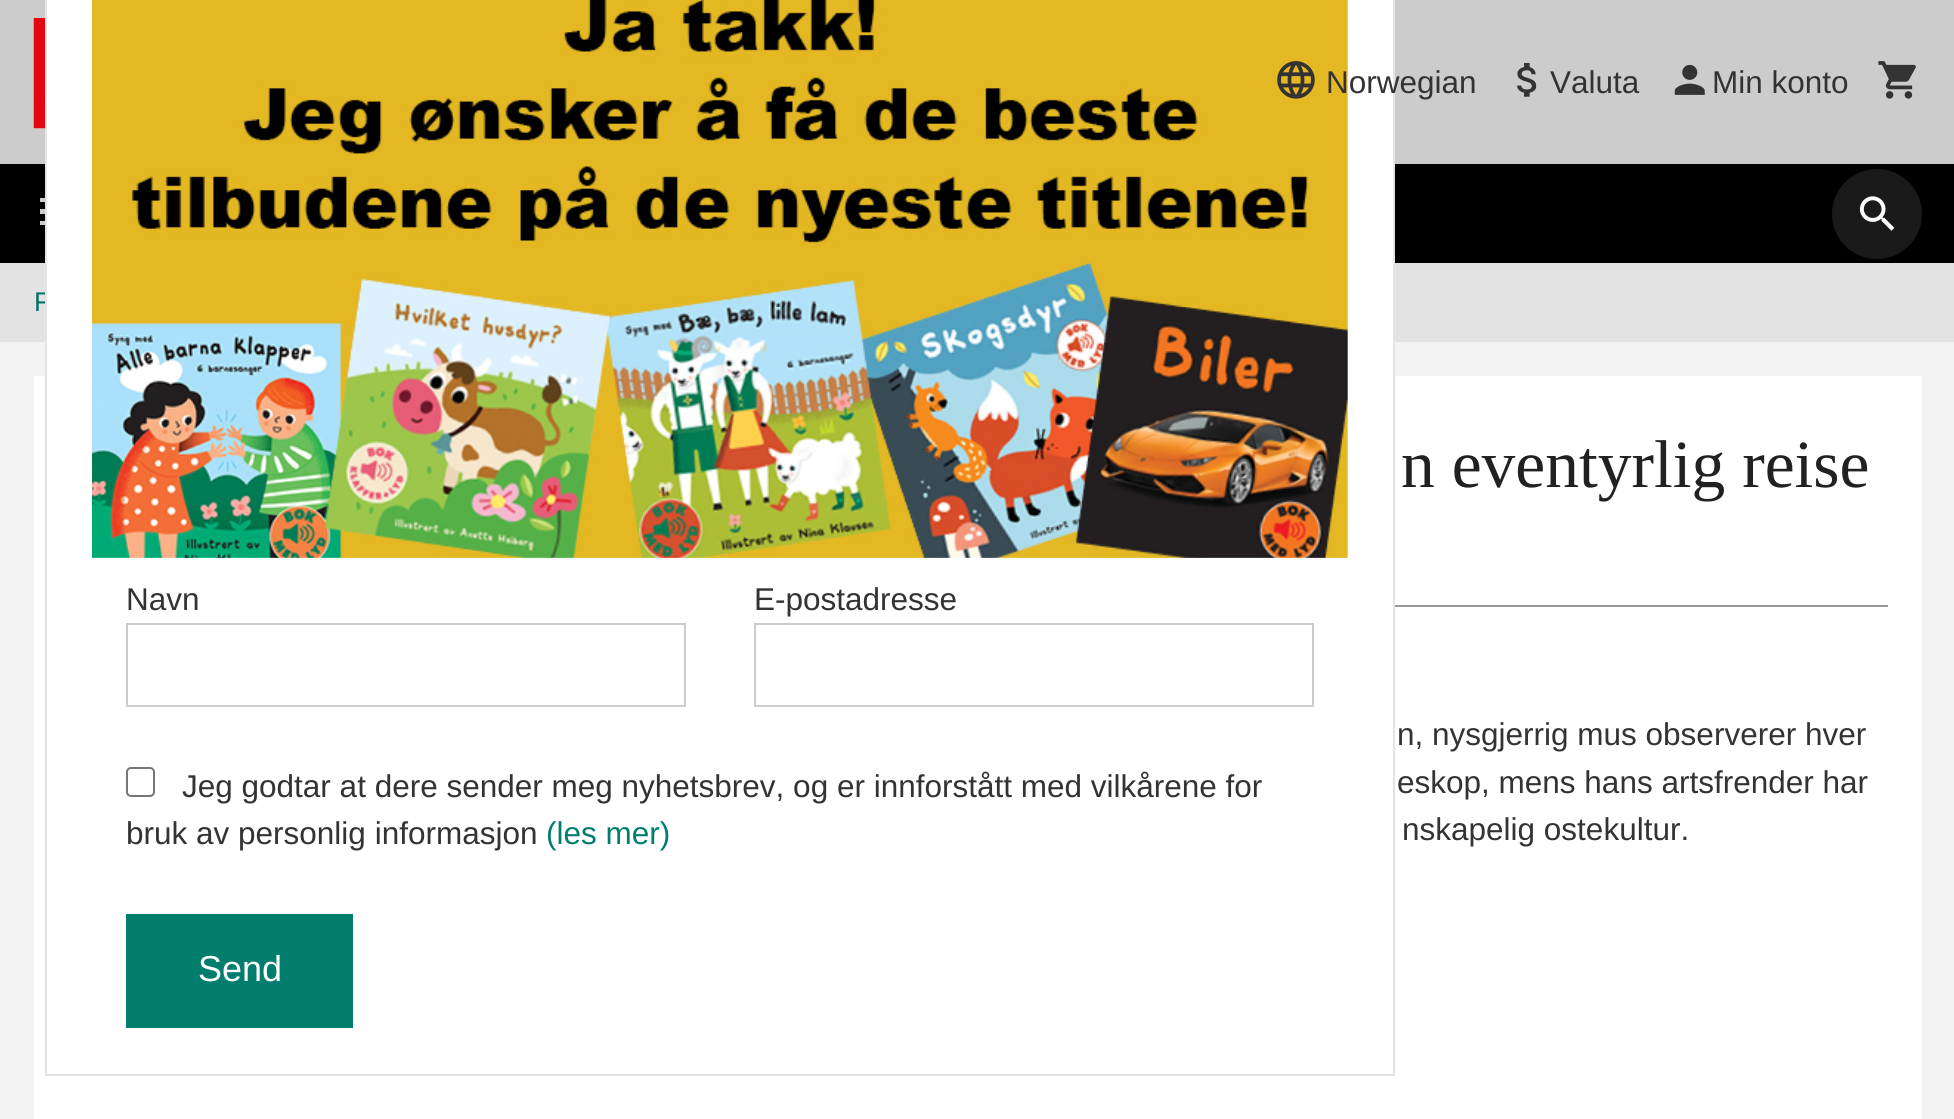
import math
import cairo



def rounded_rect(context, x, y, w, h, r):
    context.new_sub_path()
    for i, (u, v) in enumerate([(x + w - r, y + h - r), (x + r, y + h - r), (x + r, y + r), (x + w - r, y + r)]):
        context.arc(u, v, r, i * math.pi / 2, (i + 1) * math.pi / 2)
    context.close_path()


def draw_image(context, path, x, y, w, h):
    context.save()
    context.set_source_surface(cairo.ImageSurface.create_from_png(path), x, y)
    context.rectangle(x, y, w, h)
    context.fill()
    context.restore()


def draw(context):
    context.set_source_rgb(243 / 255, 243 / 255, 243 / 255)
    context.paint()
    context.set_source_rgb(204 / 255, 204 / 255, 204 / 255)
    context.rectangle(0, 0, 1954, 164)
    context.fill()
    draw_image(context, "images/1.png", 33, 18, 12, 111)
    draw_image(context, "images/3.png", 1517, 63, 20, 34)
    draw_image(context, "images/4.png", 1674, 64, 31, 31)
    draw_image(context, "images/5.png", 1878, 61, 38, 38)
    context.set_source_rgb(0, 0, 0)
    context.rectangle(0, 164, 1954, 99)
    context.fill()
    context.set_source_rgb(204 / 255, 204 / 255, 204 / 255)
    context.new_path()
    context.move_to(40, 225)
    context.line_to(81, 225)
    context.line_to(81, 221)
    context.line_to(40, 221)
    context.close_path()
    context.move_to(40, 214)
    context.line_to(81, 214)
    context.line_to(81, 209)
    context.line_to(40, 209)
    context.close_path()
    context.move_to(40, 198)
    context.line_to(40, 202)
    context.line_to(81, 202)
    context.line_to(81, 198)
    context.close_path()
    context.fill()
    context.set_source_rgb(26 / 255, 26 / 255, 26 / 255)
    context.arc(1877, 214, 45, 0, 2 * math.pi)
    context.fill()
    draw_image(context, "images/6.png", 1859, 196, 36, 35)
    context.set_source_rgb(227 / 255, 227 / 255, 227 / 255)
    context.rectangle(0, 263, 1954, 79)
    context.fill()
    context.set_source_rgb(1, 1, 1)
    context.rectangle(34, 376, 1888, 743)
    context.fill()
    context.set_source_rgb(153 / 255, 153 / 255, 153 / 255)
    context.rectangle(1395, 605, 493, 2)
    context.fill()
    context.select_font_face("Liberation Sans")
    context.set_font_size(31.5)
    context.set_source_rgb(51 / 255, 51 / 255, 51 / 255)
    context.move_to(1550, 93)
    context.show_text("Valuta")
    context.move_to(1712, 93)
    context.show_text("Min konto")
    context.set_font_size(27)
    context.set_source_rgb(1 / 255, 115 / 255, 101 / 255)
    context.move_to(34, 311)
    context.show_text("F")
    context.select_font_face("Liberation Serif")
    context.set_font_size(67.5)
    context.set_source_rgb(33 / 255, 33 / 255, 33 / 255)
    context.move_to(1401, 487)
    context.show_text("n eventyrlig reise")
    context.select_font_face("Liberation Sans")
    context.set_font_size(31.5)
    context.set_source_rgb(51 / 255, 51 / 255, 51 / 255)
    context.move_to(1397, 745)
    context.show_text("n, nysgjerrig mus observerer hver")
    context.move_to(1397, 793)
    context.show_text("eskop, mens hans artsfrender har")
    context.move_to(1402, 840)
    context.show_text("nskapelig ostekultur.")
    context.set_source_rgb(1, 1, 1)
    context.rectangle(47, 0, 1346, 376)
    context.fill()
    context.rectangle(46, -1, 1348, 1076)
    context.set_source_rgb(228 / 255, 228 / 255, 228 / 255)
    context.stroke()
    draw_image(context, "images/7.png", 92, 0, 1256, 558)
    context.set_source_rgb(51 / 255, 51 / 255, 51 / 255)
    context.move_to(1326, 93)
    context.show_text("Norwegian")
    draw_image(context, "images/2.png", 1277, 61, 38, 38)
    context.move_to(126, 610)
    context.show_text("Navn")
    context.rectangle(127, 624, 558, 82)
    context.set_source_rgb(204 / 255, 204 / 255, 204 / 255)
    context.stroke()
    context.set_source_rgb(51 / 255, 51 / 255, 51 / 255)
    context.move_to(754, 610)
    context.show_text("E-postadresse")
    context.rectangle(755, 624, 558, 82)
    context.set_source_rgb(204 / 255, 204 / 255, 204 / 255)
    context.stroke()
    rounded_rect(context, 127, 768, 27, 28, 4)
    context.set_source_rgb(118 / 255, 118 / 255, 118 / 255)
    context.stroke()
    context.set_source_rgb(51 / 255, 51 / 255, 51 / 255)
    context.move_to(182, 797)
    context.show_text("Jeg godtar at dere sender meg nyhetsbrev, og er innforstått med vilkårene for")
    context.move_to(126, 844)
    context.show_text("bruk av personlig informasjon")
    context.set_source_rgb(1 / 255, 125 / 255, 110 / 255)
    context.move_to(546, 844)
    context.show_text("(les mer)")
    context.rectangle(126, 914, 227, 114)
    context.fill()
    context.set_font_size(36)
    context.set_source_rgb(1, 1, 1)
    context.move_to(198, 981)
    context.show_text("Send")


surface = cairo.ImageSurface(cairo.Format.RGB24, 1954, 1119)
context = cairo.Context(surface)
options = cairo.FontOptions()
options.set_hint_metrics(cairo.HintMetrics.OFF)
options.set_hint_style(cairo.HintStyle.NONE)
context.set_font_options(options)
context.set_miter_limit(4)
draw(context)
surface.write_to_png("out.png")
